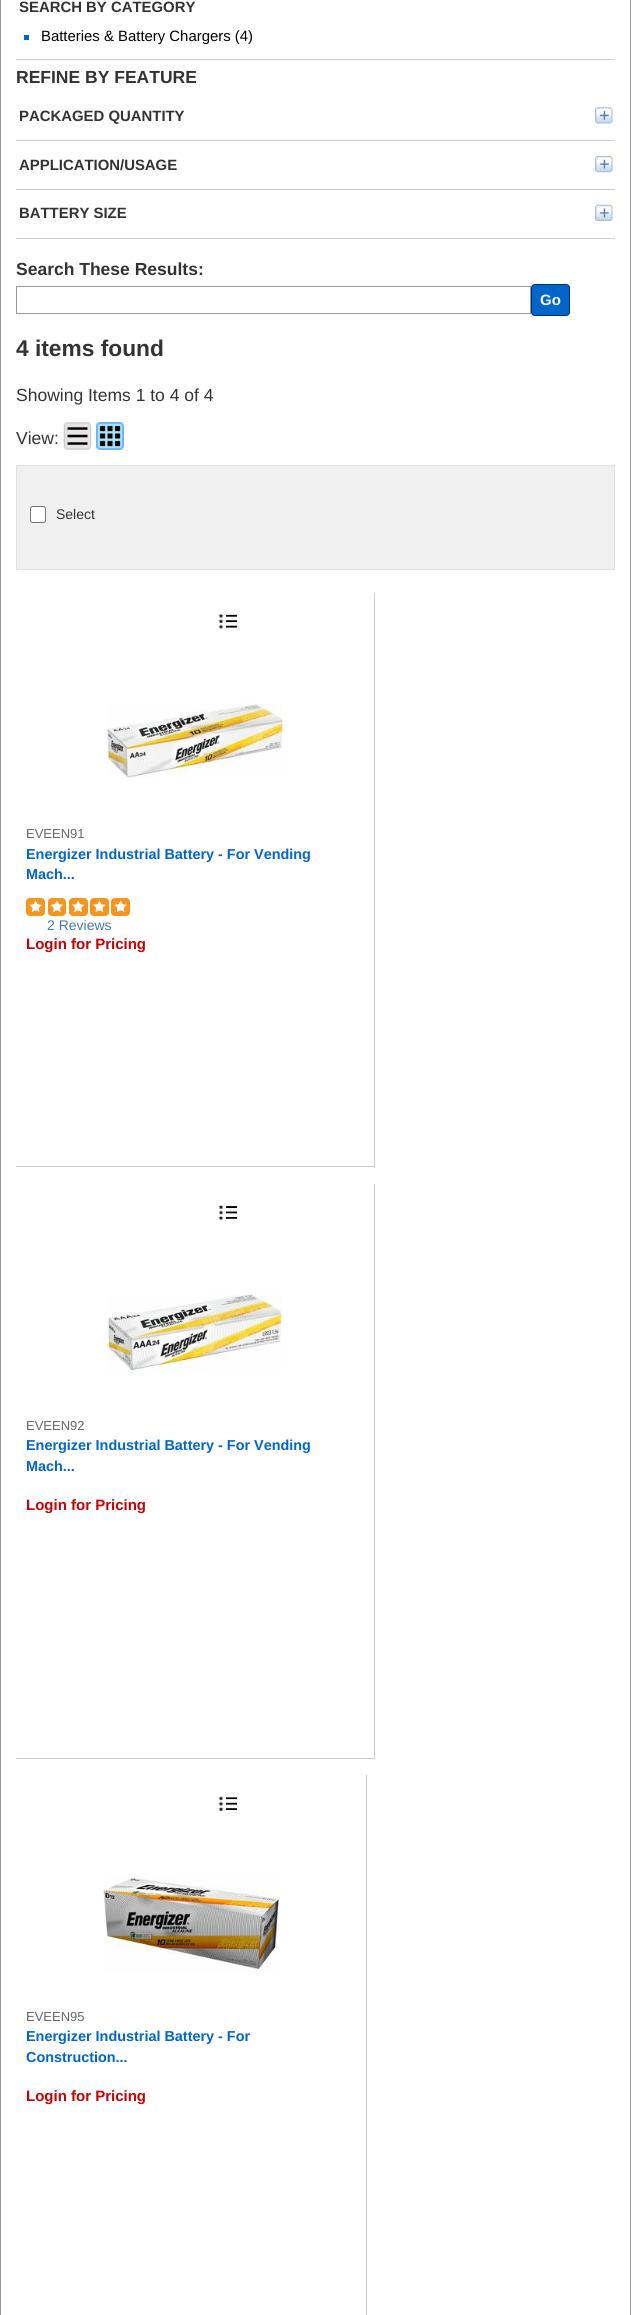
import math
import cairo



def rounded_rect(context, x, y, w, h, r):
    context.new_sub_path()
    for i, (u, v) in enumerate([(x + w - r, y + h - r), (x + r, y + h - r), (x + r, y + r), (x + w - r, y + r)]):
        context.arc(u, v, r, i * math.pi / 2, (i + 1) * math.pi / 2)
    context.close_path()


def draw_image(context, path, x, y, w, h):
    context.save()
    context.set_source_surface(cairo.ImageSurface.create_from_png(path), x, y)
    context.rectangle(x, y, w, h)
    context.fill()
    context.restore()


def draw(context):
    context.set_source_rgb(1, 1, 1)
    context.paint()
    context.set_source_rgb(153 / 255, 153 / 255, 153 / 255)
    context.rectangle(630, 0, 1, 2315)
    context.fill()
    context.rectangle(0, 0, 1, 2315)
    context.fill()
    context.set_source_rgb(204 / 255, 204 / 255, 204 / 255)
    context.rectangle(16, 59, 599, 1)
    context.fill()
    context.set_source_rgb(0, 102 / 255, 204 / 255)
    context.rectangle(24, 35, 5, 5)
    context.fill()
    context.set_source_rgb(204 / 255, 204 / 255, 204 / 255)
    context.rectangle(16, 140, 599, 1)
    context.fill()
    draw_image(context, "images/1.png", 595, 107, 18, 17)
    context.rectangle(16, 189, 599, 1)
    context.fill()
    draw_image(context, "images/2.png", 595, 156, 18, 17)
    context.rectangle(16, 238, 599, 1)
    context.fill()
    draw_image(context, "images/3.png", 595, 204, 18, 17)
    context.rectangle(16.5, 286.5, 514, 27)
    context.set_source_rgb(153 / 255, 153 / 255, 153 / 255)
    context.set_line_width(1)
    context.stroke()
    context.set_source_rgb(0, 102 / 255, 204 / 255)
    rounded_rect(context, 531.5, 284.5, 38, 31, 3.5)
    context.fill_preserve()
    context.set_source_rgb(0, 51 / 255, 102 / 255)
    context.stroke()
    draw_image(context, "images/4.png", 63, 422, 29, 28)
    draw_image(context, "images/5.png", 96, 422, 28, 28)
    context.set_source_rgb(240 / 255, 240 / 255, 240 / 255)
    context.rectangle(16.5, 465.5, 598, 104)
    context.fill_preserve()
    context.set_source_rgb(224 / 255, 224 / 255, 224 / 255)
    context.stroke()
    context.set_source_rgb(1, 1, 1)
    rounded_rect(context, 30.5, 506.5, 15, 16, 2)
    context.fill_preserve()
    context.set_source_rgb(118 / 255, 118 / 255, 118 / 255)
    context.stroke()
    context.set_source_rgb(204 / 255, 204 / 255, 204 / 255)
    context.rectangle(374, 593, 1, 575)
    context.fill()
    context.rectangle(16, 1166, 359, 1)
    context.fill()
    draw_image(context, "images/6.png", 218, 614, 19, 15)
    draw_image(context, "images/7.png", 107, 703, 176, 75)
    draw_image(context, "images/8.png", 26, 898, 19, 18)
    draw_image(context, "images/9.png", 48, 898, 18, 18)
    draw_image(context, "images/10.png", 69, 898, 19, 18)
    draw_image(context, "images/11.png", 90, 898, 19, 18)
    draw_image(context, "images/8.png", 111, 898, 19, 18)
    context.rectangle(374, 1184, 1, 575)
    context.fill()
    context.rectangle(16, 1758, 359, 1)
    context.fill()
    draw_image(context, "images/12.png", 218, 1205, 19, 16)
    draw_image(context, "images/13.png", 107, 1294, 176, 81)
    context.rectangle(366, 1775, 1, 540)
    context.fill()
    draw_image(context, "images/14.png", 218, 1796, 19, 16)
    draw_image(context, "images/15.png", 103, 1874, 176, 99)
    context.select_font_face("Liberation Sans", cairo.FontSlant.NORMAL, cairo.FontWeight.BOLD)
    context.set_font_size(14.9)
    context.set_source_rgb(51 / 255, 51 / 255, 51 / 255)
    context.move_to(19, 12)
    context.show_text("SEARCH BY CATEGORY")
    context.select_font_face("Liberation Sans")
    context.set_source_rgb(0, 0, 0)
    context.move_to(41, 41)
    context.show_text("Batteries & Battery Chargers (4)")
    context.select_font_face("Liberation Sans", cairo.FontSlant.NORMAL, cairo.FontWeight.BOLD)
    context.set_font_size(17.5)
    context.set_source_rgb(51 / 255, 51 / 255, 51 / 255)
    context.move_to(16, 83)
    context.show_text("REFINE BY FEATURE")
    context.set_font_size(14.9)
    context.move_to(19, 121)
    context.show_text("PACKAGED QUANTITY")
    context.move_to(19, 170)
    context.show_text("APPLICATION/USAGE")
    context.move_to(19, 218)
    context.show_text("BATTERY SIZE")
    context.set_font_size(17.5)
    context.move_to(16, 275)
    context.show_text("Search These Results:")
    context.set_font_size(15)
    context.set_source_rgb(1, 1, 1)
    context.move_to(540, 305)
    context.show_text("Go")
    context.set_font_size(22.75)
    context.set_source_rgb(51 / 255, 51 / 255, 51 / 255)
    context.move_to(16, 356)
    context.show_text("4 items found")
    context.select_font_face("Liberation Sans")
    context.set_font_size(17.5)
    context.move_to(16, 401)
    context.show_text("Showing Items 1 to 4 of 4")
    context.move_to(16, 444)
    context.show_text("View:")
    context.set_font_size(14)
    context.move_to(56, 519)
    context.show_text("Select")
    context.set_font_size(13)
    context.set_source_rgb(102 / 255, 102 / 255, 102 / 255)
    context.move_to(26, 838)
    context.show_text("EVEEN91")
    context.select_font_face("Liberation Sans", cairo.FontSlant.NORMAL, cairo.FontWeight.BOLD)
    context.set_font_size(14.4)
    context.set_source_rgb(0, 102 / 255, 204 / 255)
    context.move_to(26, 859)
    context.show_text("Energizer Industrial Battery - For Vending")
    context.move_to(26, 879)
    context.show_text("Mach...")
    context.select_font_face("Liberation Sans")
    context.set_font_size(14)
    context.set_source_rgb(72 / 255, 118 / 255, 182 / 255)
    context.move_to(47, 930)
    context.show_text("2 Reviews")
    context.select_font_face("Liberation Sans", cairo.FontSlant.NORMAL, cairo.FontWeight.BOLD)
    context.set_font_size(15)
    context.set_source_rgb(204 / 255, 0, 0)
    context.move_to(26, 949)
    context.show_text("Login for Pricing")
    context.select_font_face("Liberation Sans")
    context.set_font_size(13)
    context.set_source_rgb(102 / 255, 102 / 255, 102 / 255)
    context.move_to(26, 1430)
    context.show_text("EVEEN92")
    context.select_font_face("Liberation Sans", cairo.FontSlant.NORMAL, cairo.FontWeight.BOLD)
    context.set_font_size(14.4)
    context.set_source_rgb(0, 102 / 255, 204 / 255)
    context.move_to(26, 1450)
    context.show_text("Energizer Industrial Battery - For Vending")
    context.move_to(26, 1471)
    context.show_text("Mach...")
    context.set_font_size(15)
    context.set_source_rgb(204 / 255, 0, 0)
    context.move_to(26, 1510)
    context.show_text("Login for Pricing")
    context.select_font_face("Liberation Sans")
    context.set_font_size(13)
    context.set_source_rgb(102 / 255, 102 / 255, 102 / 255)
    context.move_to(26, 2021)
    context.show_text("EVEEN95")
    context.select_font_face("Liberation Sans", cairo.FontSlant.NORMAL, cairo.FontWeight.BOLD)
    context.set_font_size(14.4)
    context.set_source_rgb(0, 102 / 255, 204 / 255)
    context.move_to(26, 2041)
    context.show_text("Energizer Industrial Battery - For")
    context.move_to(26, 2062)
    context.show_text("Construction...")
    context.set_font_size(15)
    context.set_source_rgb(204 / 255, 0, 0)
    context.move_to(26, 2101)
    context.show_text("Login for Pricing")


surface = cairo.ImageSurface(cairo.Format.RGB24, 631, 2315)
context = cairo.Context(surface)
options = cairo.FontOptions()
options.set_hint_metrics(cairo.HintMetrics.OFF)
options.set_hint_style(cairo.HintStyle.NONE)
context.set_font_options(options)
context.set_miter_limit(4)
draw(context)
surface.write_to_png("out.png")
